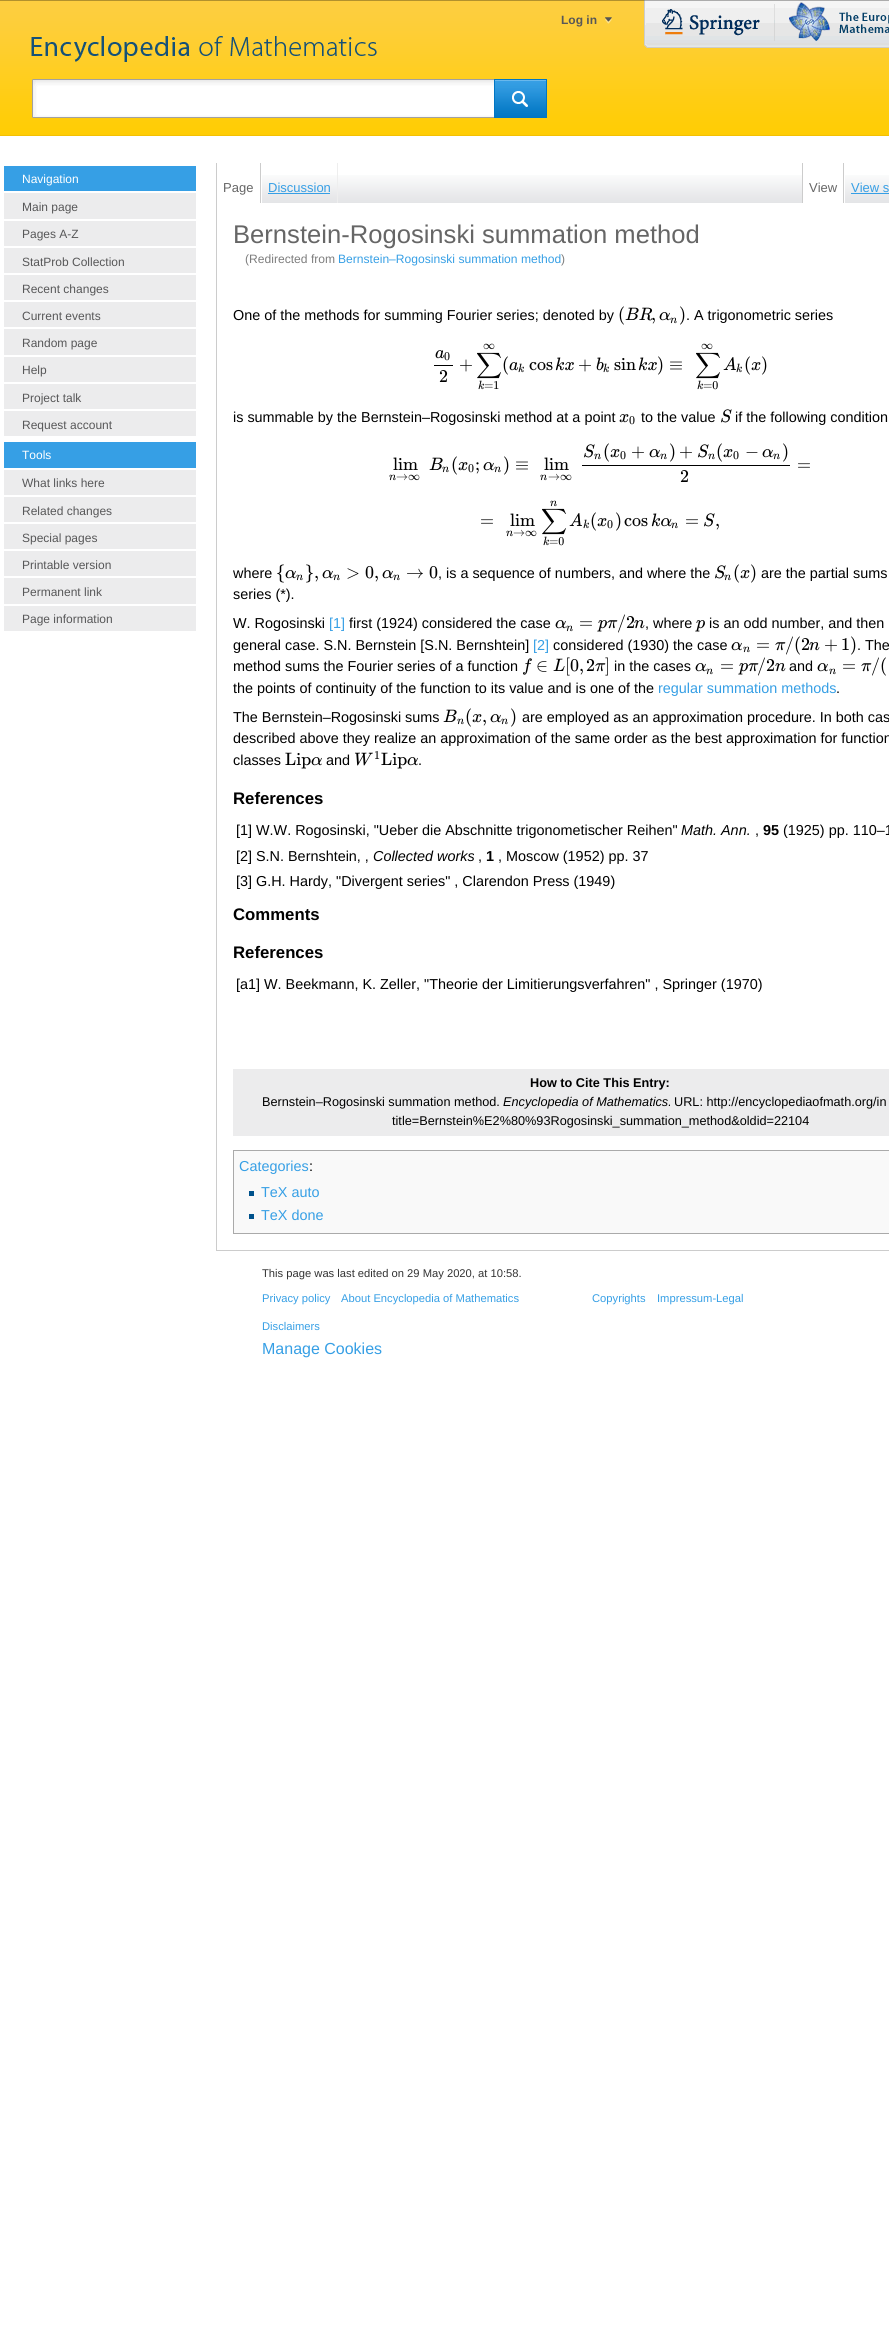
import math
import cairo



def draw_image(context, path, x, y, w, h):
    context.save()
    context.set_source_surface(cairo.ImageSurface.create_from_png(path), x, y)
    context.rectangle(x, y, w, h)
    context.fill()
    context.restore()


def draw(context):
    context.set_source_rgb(1, 1, 1)
    context.paint()
    draw_image(context, "images/1.png", 0, 0, 889, 136)
    draw_image(context, "images/2.png", 605, 17, 7, 7)
    draw_image(context, "images/3.png", 644, 0, 245, 48)
    draw_image(context, "images/4.png", 31, 36, 346, 26)
    draw_image(context, "images/5.png", 32, 79, 515, 39)
    context.set_source_rgb(54 / 255, 159 / 255, 229 / 255)
    context.rectangle(4, 166, 192, 25)
    context.fill()
    context.set_source_rgb(236 / 255, 236 / 255, 237 / 255)
    context.rectangle(4, 193, 192, 26)
    context.fill()
    context.rectangle(4, 221, 192, 25)
    context.fill()
    context.rectangle(4, 248, 192, 25)
    context.fill()
    context.rectangle(4, 275, 192, 25)
    context.fill()
    context.rectangle(4, 302, 192, 25)
    context.fill()
    context.rectangle(4, 329, 192, 26)
    context.fill()
    context.rectangle(4, 357, 192, 25)
    context.fill()
    context.rectangle(4, 384, 192, 25)
    context.fill()
    context.rectangle(4, 411, 192, 25)
    context.fill()
    context.set_source_rgb(54 / 255, 159 / 255, 229 / 255)
    context.rectangle(4, 442, 192, 26)
    context.fill()
    context.set_source_rgb(236 / 255, 236 / 255, 237 / 255)
    context.rectangle(4, 470, 192, 25)
    context.fill()
    context.rectangle(4, 497, 192, 25)
    context.fill()
    context.rectangle(4, 524, 192, 25)
    context.fill()
    context.rectangle(4, 551, 192, 25)
    context.fill()
    context.rectangle(4, 578, 192, 26)
    context.fill()
    context.rectangle(4, 606, 192, 25)
    context.fill()
    context.rectangle(216.5, 202.5, 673, 1048)
    context.set_source_rgb(204 / 255, 204 / 255, 204 / 255)
    context.set_line_width(1)
    context.stroke()
    draw_image(context, "images/6.png", 262, 175, 627, 28)
    context.set_source_rgb(1, 1, 1)
    context.rectangle(217, 202, 43, 1)
    context.fill()
    context.set_source_rgb(204 / 255, 204 / 255, 204 / 255)
    context.rectangle(260, 163, 1, 40)
    context.fill()
    context.rectangle(216, 163, 1, 40)
    context.fill()
    context.set_source_rgb(238 / 255, 238 / 255, 238 / 255)
    context.rectangle(337, 163, 1, 40)
    context.fill()
    context.set_source_rgb(1, 1, 1)
    context.rectangle(261, 202, 1, 1)
    context.fill()
    context.set_source_rgb(54 / 255, 159 / 255, 229 / 255)
    context.rectangle(268, 193, 62, 1)
    context.fill()
    context.set_source_rgb(1, 1, 1)
    context.rectangle(803, 175, 40, 28)
    context.fill()
    context.set_source_rgb(204 / 255, 204 / 255, 204 / 255)
    context.rectangle(843, 163, 1, 40)
    context.fill()
    context.rectangle(802, 163, 1, 40)
    context.fill()
    context.set_source_rgb(1, 1, 1)
    context.rectangle(844, 175, 1, 28)
    context.fill()
    context.set_source_rgb(54 / 255, 159 / 255, 229 / 255)
    context.rectangle(851, 193, 38, 1)
    context.fill()
    context.set_source_rgb(0, 0, 0)
    context.rectangle(434, 365, 19, 1)
    context.fill()
    context.rectangle(582, 465, 208, 1)
    context.fill()
    context.set_source_rgb(236 / 255, 236 / 255, 237 / 255)
    context.rectangle(233, 1069, 656, 67)
    context.fill()
    context.set_source_rgb(249 / 255, 249 / 255, 249 / 255)
    context.rectangle(233.5, 1150.5, 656, 83)
    context.fill_preserve()
    context.set_source_rgb(170 / 255, 170 / 255, 170 / 255)
    context.stroke()
    context.set_source_rgb(0, 82 / 255, 140 / 255)
    context.rectangle(249, 1191, 5, 5)
    context.fill()
    context.rectangle(249, 1214, 5, 5)
    context.fill()
    context.select_font_face("Liberation Sans", cairo.FontSlant.NORMAL, cairo.FontWeight.BOLD)
    context.set_font_size(12)
    context.set_source_rgb(87 / 255, 87 / 255, 88 / 255)
    context.move_to(561, 24)
    context.show_text("Log in")
    context.select_font_face("Liberation Sans")
    context.set_source_rgb(1, 1, 1)
    context.move_to(22, 183)
    context.show_text("Navigation")
    context.set_source_rgb(87 / 255, 87 / 255, 88 / 255)
    context.move_to(22, 211)
    context.show_text("Main page")
    context.move_to(22, 238)
    context.show_text("Pages A-Z")
    context.move_to(22, 266)
    context.show_text("StatProb Collection")
    context.move_to(22, 293)
    context.show_text("Recent changes")
    context.move_to(22, 320)
    context.show_text("Current events")
    context.move_to(22, 347)
    context.show_text("Random page")
    context.move_to(22, 374)
    context.show_text("Help")
    context.move_to(22, 402)
    context.show_text("Project talk")
    context.move_to(22, 429)
    context.show_text("Request account")
    context.set_source_rgb(1, 1, 1)
    context.move_to(22, 459)
    context.show_text("Tools")
    context.set_source_rgb(87 / 255, 87 / 255, 88 / 255)
    context.move_to(22, 487)
    context.show_text("What links here")
    context.move_to(22, 515)
    context.show_text("Related changes")
    context.move_to(22, 542)
    context.show_text("Special pages")
    context.move_to(22, 569)
    context.show_text("Printable version")
    context.move_to(22, 596)
    context.show_text("Permanent link")
    context.move_to(22, 623)
    context.show_text("Page information")
    context.set_font_size(13)
    context.set_source_rgb(102 / 255, 102 / 255, 102 / 255)
    context.move_to(223, 192)
    context.show_text("Page")
    context.set_source_rgb(54 / 255, 159 / 255, 229 / 255)
    context.move_to(268, 192)
    context.show_text("Discussion")
    context.set_source_rgb(102 / 255, 102 / 255, 102 / 255)
    context.move_to(809, 192)
    context.show_text("View")
    context.set_source_rgb(54 / 255, 159 / 255, 229 / 255)
    context.move_to(851, 192)
    context.show_text("View s")
    context.set_font_size(25.6)
    context.set_source_rgb(102 / 255, 102 / 255, 102 / 255)
    context.move_to(233, 243)
    context.show_text("Bernstein-Rogosinski summation method")
    context.set_font_size(12.1)
    context.set_source_rgb(125 / 255, 125 / 255, 125 / 255)
    context.move_to(245, 263)
    context.show_text("(Redirected from")
    context.set_source_rgb(54 / 255, 159 / 255, 229 / 255)
    context.move_to(338, 263)
    context.show_text("Bernstein–Rogosinski summation method")
    context.set_source_rgb(125 / 255, 125 / 255, 125 / 255)
    context.move_to(561, 263)
    context.show_text(")")
    context.set_font_size(14.4)
    context.set_source_rgb(0, 0, 0)
    context.move_to(233, 320)
    context.show_text("One of the methods for summing Fourier series; denoted by")
    context.select_font_face("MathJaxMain")
    context.set_font_size(18)
    context.move_to(618, 320)
    context.show_text("(")
    context.select_font_face("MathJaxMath", cairo.FontSlant.ITALIC)
    context.move_to(625, 320)
    context.show_text("BR")
    context.select_font_face("MathJaxMain")
    context.move_to(651, 320)
    context.show_text(",")
    context.select_font_face("MathJaxMath", cairo.FontSlant.ITALIC)
    context.move_to(659, 320)
    context.show_text("α")
    context.set_font_size(12)
    context.move_to(670, 323)
    context.show_text("n")
    context.select_font_face("MathJaxMain")
    context.set_font_size(18)
    context.move_to(679, 320)
    context.show_text(")")
    context.select_font_face("Liberation Sans")
    context.set_font_size(14.4)
    context.move_to(686, 320)
    context.show_text(". A trigonometric series")
    context.select_font_face("MathJaxMath", cairo.FontSlant.ITALIC)
    context.set_font_size(18)
    context.move_to(435, 358)
    context.show_text("a")
    context.select_font_face("MathJaxMain")
    context.set_font_size(12)
    context.move_to(444, 360)
    context.show_text("0")
    context.set_font_size(18)
    context.move_to(439, 382)
    context.show_text("2")
    context.move_to(459, 370)
    context.show_text("+")
    context.set_font_size(12)
    context.move_to(483, 349)
    context.show_text("∞")
    context.select_font_face("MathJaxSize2")
    context.set_font_size(18)
    context.move_to(476, 370)
    context.show_text("∑")
    context.select_font_face("MathJaxMath", cairo.FontSlant.ITALIC)
    context.set_font_size(12)
    context.move_to(478, 389)
    context.show_text("k")
    context.select_font_face("MathJaxMain")
    context.move_to(484, 389)
    context.show_text("=1")
    context.set_font_size(18)
    context.move_to(502, 370)
    context.show_text("(")
    context.select_font_face("MathJaxMath", cairo.FontSlant.ITALIC)
    context.move_to(509, 370)
    context.show_text("a")
    context.set_font_size(12)
    context.move_to(518, 372)
    context.show_text("k")
    context.select_font_face("MathJaxMain")
    context.set_font_size(18)
    context.move_to(529, 370)
    context.show_text("cos")
    context.select_font_face("MathJaxMath", cairo.FontSlant.ITALIC)
    context.move_to(555, 370)
    context.show_text("kx")
    context.select_font_face("MathJaxMain")
    context.move_to(578, 370)
    context.show_text("+")
    context.select_font_face("MathJaxMath", cairo.FontSlant.ITALIC)
    context.move_to(596, 370)
    context.show_text("b")
    context.set_font_size(12)
    context.move_to(603, 372)
    context.show_text("k")
    context.select_font_face("MathJaxMain")
    context.set_font_size(18)
    context.move_to(614, 370)
    context.show_text("sin")
    context.select_font_face("MathJaxMath", cairo.FontSlant.ITALIC)
    context.move_to(638, 370)
    context.show_text("kx")
    context.select_font_face("MathJaxMain")
    context.move_to(657, 370)
    context.show_text(")")
    context.move_to(669, 370)
    context.show_text("≡")
    context.set_font_size(12)
    context.move_to(701, 349)
    context.show_text("∞")
    context.select_font_face("MathJaxSize2")
    context.set_font_size(18)
    context.move_to(695, 370)
    context.show_text("∑")
    context.select_font_face("MathJaxMath", cairo.FontSlant.ITALIC)
    context.set_font_size(12)
    context.move_to(697, 389)
    context.show_text("k")
    context.select_font_face("MathJaxMain")
    context.move_to(703, 389)
    context.show_text("=0")
    context.select_font_face("MathJaxMath", cairo.FontSlant.ITALIC)
    context.set_font_size(18)
    context.move_to(723, 370)
    context.show_text("A")
    context.set_font_size(12)
    context.move_to(736, 372)
    context.show_text("k")
    context.select_font_face("MathJaxMain")
    context.set_font_size(18)
    context.move_to(744, 370)
    context.show_text("(")
    context.select_font_face("MathJaxMath", cairo.FontSlant.ITALIC)
    context.move_to(751, 370)
    context.show_text("x")
    context.select_font_face("MathJaxMain")
    context.move_to(761, 370)
    context.show_text(")")
    context.select_font_face("Liberation Sans")
    context.set_font_size(14.4)
    context.move_to(233, 422)
    context.show_text("is summable by the Bernstein–Rogosinski method at a point")
    context.select_font_face("MathJaxMath", cairo.FontSlant.ITALIC)
    context.set_font_size(18)
    context.move_to(619, 422)
    context.show_text("x")
    context.select_font_face("MathJaxMain")
    context.set_font_size(12)
    context.move_to(629, 424)
    context.show_text("0")
    context.select_font_face("Liberation Sans")
    context.set_font_size(14.4)
    context.move_to(641, 422)
    context.show_text("to the value")
    context.select_font_face("MathJaxMath", cairo.FontSlant.ITALIC)
    context.set_font_size(18)
    context.move_to(720, 422)
    context.show_text("S")
    context.select_font_face("Liberation Sans")
    context.set_font_size(14.4)
    context.move_to(735, 422)
    context.show_text("if the following condition")
    context.select_font_face("MathJaxMain")
    context.set_font_size(18)
    context.move_to(393, 470)
    context.show_text("lim")
    context.select_font_face("MathJaxMath", cairo.FontSlant.ITALIC)
    context.set_font_size(12)
    context.move_to(389, 480)
    context.show_text("n")
    context.select_font_face("MathJaxMain")
    context.move_to(396, 480)
    context.show_text("→∞")
    context.select_font_face("MathJaxMath", cairo.FontSlant.ITALIC)
    context.set_font_size(18)
    context.move_to(429, 470)
    context.show_text("B")
    context.set_font_size(12)
    context.move_to(442, 472)
    context.show_text("n")
    context.select_font_face("MathJaxMain")
    context.set_font_size(18)
    context.move_to(451, 470)
    context.show_text("(")
    context.select_font_face("MathJaxMath", cairo.FontSlant.ITALIC)
    context.move_to(458, 470)
    context.show_text("x")
    context.select_font_face("MathJaxMain")
    context.set_font_size(12)
    context.move_to(468, 472)
    context.show_text("0")
    context.set_font_size(18)
    context.move_to(475, 470)
    context.show_text(";")
    context.select_font_face("MathJaxMath", cairo.FontSlant.ITALIC)
    context.move_to(483, 470)
    context.show_text("α")
    context.set_font_size(12)
    context.move_to(494, 472)
    context.show_text("n")
    context.select_font_face("MathJaxMain")
    context.set_font_size(18)
    context.move_to(503, 470)
    context.show_text(")")
    context.move_to(515, 470)
    context.show_text("≡")
    context.move_to(544, 470)
    context.show_text("lim")
    context.select_font_face("MathJaxMath", cairo.FontSlant.ITALIC)
    context.set_font_size(12)
    context.move_to(540, 480)
    context.show_text("n")
    context.select_font_face("MathJaxMain")
    context.move_to(548, 480)
    context.show_text("→∞")
    context.select_font_face("MathJaxMath", cairo.FontSlant.ITALIC)
    context.set_font_size(18)
    context.move_to(583, 457)
    context.show_text("S")
    context.set_font_size(12)
    context.move_to(594, 459)
    context.show_text("n")
    context.select_font_face("MathJaxMain")
    context.set_font_size(18)
    context.move_to(603, 457)
    context.show_text("(")
    context.select_font_face("MathJaxMath", cairo.FontSlant.ITALIC)
    context.move_to(610, 457)
    context.show_text("x")
    context.select_font_face("MathJaxMain")
    context.set_font_size(12)
    context.move_to(620, 459)
    context.show_text("0")
    context.set_font_size(18)
    context.move_to(631, 457)
    context.show_text("+")
    context.select_font_face("MathJaxMath", cairo.FontSlant.ITALIC)
    context.move_to(649, 457)
    context.show_text("α")
    context.set_font_size(12)
    context.move_to(660, 459)
    context.show_text("n")
    context.select_font_face("MathJaxMain")
    context.set_font_size(18)
    context.move_to(669, 457)
    context.show_text(")")
    context.move_to(679, 457)
    context.show_text("+")
    context.select_font_face("MathJaxMath", cairo.FontSlant.ITALIC)
    context.move_to(697, 457)
    context.show_text("S")
    context.set_font_size(12)
    context.move_to(708, 459)
    context.show_text("n")
    context.select_font_face("MathJaxMain")
    context.set_font_size(18)
    context.move_to(716, 457)
    context.show_text("(")
    context.select_font_face("MathJaxMath", cairo.FontSlant.ITALIC)
    context.move_to(723, 457)
    context.show_text("x")
    context.select_font_face("MathJaxMain")
    context.set_font_size(12)
    context.move_to(733, 459)
    context.show_text("0")
    context.set_font_size(18)
    context.move_to(745, 457)
    context.show_text("−")
    context.select_font_face("MathJaxMath", cairo.FontSlant.ITALIC)
    context.move_to(762, 457)
    context.show_text("α")
    context.set_font_size(12)
    context.move_to(773, 459)
    context.show_text("n")
    context.select_font_face("MathJaxMain")
    context.set_font_size(18)
    context.move_to(782, 457)
    context.show_text(")")
    context.move_to(680, 482)
    context.show_text("2")
    context.move_to(797, 470)
    context.show_text("=")
    context.move_to(480, 526)
    context.show_text("=")
    context.move_to(510, 526)
    context.show_text("lim")
    context.select_font_face("MathJaxMath", cairo.FontSlant.ITALIC)
    context.set_font_size(12)
    context.move_to(506, 536)
    context.show_text("n")
    context.select_font_face("MathJaxMain")
    context.move_to(513, 536)
    context.show_text("→∞")
    context.select_font_face("MathJaxMath", cairo.FontSlant.ITALIC)
    context.move_to(550, 506)
    context.show_text("n")
    context.select_font_face("MathJaxSize2")
    context.set_font_size(18)
    context.move_to(541, 526)
    context.show_text("∑")
    context.select_font_face("MathJaxMath", cairo.FontSlant.ITALIC)
    context.set_font_size(12)
    context.move_to(543, 545)
    context.show_text("k")
    context.select_font_face("MathJaxMain")
    context.move_to(549, 545)
    context.show_text("=0")
    context.select_font_face("MathJaxMath", cairo.FontSlant.ITALIC)
    context.set_font_size(18)
    context.move_to(569, 526)
    context.show_text("A")
    context.set_font_size(12)
    context.move_to(583, 528)
    context.show_text("k")
    context.select_font_face("MathJaxMain")
    context.set_font_size(18)
    context.move_to(590, 526)
    context.show_text("(")
    context.select_font_face("MathJaxMath", cairo.FontSlant.ITALIC)
    context.move_to(597, 526)
    context.show_text("x")
    context.select_font_face("MathJaxMain")
    context.set_font_size(12)
    context.move_to(607, 528)
    context.show_text("0")
    context.set_font_size(18)
    context.move_to(615, 526)
    context.show_text(")")
    context.move_to(624, 526)
    context.show_text("cos")
    context.select_font_face("MathJaxMath", cairo.FontSlant.ITALIC)
    context.move_to(651, 526)
    context.show_text("kα")
    context.select_font_face("MathJaxMain")
    context.move_to(685, 526)
    context.show_text("=")
    context.select_font_face("MathJaxMath", cairo.FontSlant.ITALIC)
    context.move_to(703, 526)
    context.show_text("S")
    context.set_font_size(12)
    context.move_to(671, 528)
    context.show_text("n")
    context.select_font_face("MathJaxMain")
    context.set_font_size(18)
    context.move_to(715, 526)
    context.show_text(",")
    context.select_font_face("Liberation Sans")
    context.set_font_size(14.4)
    context.move_to(233, 578)
    context.show_text("where")
    context.select_font_face("MathJaxMain")
    context.set_font_size(18)
    context.move_to(276, 578)
    context.show_text("{")
    context.select_font_face("MathJaxMath", cairo.FontSlant.ITALIC)
    context.move_to(285, 578)
    context.show_text("α")
    context.set_font_size(12)
    context.move_to(296, 580)
    context.show_text("n")
    context.select_font_face("MathJaxMain")
    context.set_font_size(18)
    context.move_to(305, 578)
    context.show_text("},")
    context.select_font_face("MathJaxMath", cairo.FontSlant.ITALIC)
    context.move_to(322, 578)
    context.show_text("α")
    context.set_font_size(12)
    context.move_to(333, 580)
    context.show_text("n")
    context.select_font_face("MathJaxMain")
    context.set_font_size(18)
    context.move_to(346, 578)
    context.show_text(">")
    context.move_to(365, 578)
    context.show_text("0,")
    context.select_font_face("MathJaxMath", cairo.FontSlant.ITALIC)
    context.move_to(382, 578)
    context.show_text("α")
    context.set_font_size(12)
    context.move_to(393, 580)
    context.show_text("n")
    context.select_font_face("MathJaxMain")
    context.set_font_size(18)
    context.move_to(406, 578)
    context.show_text("→")
    context.move_to(429, 578)
    context.show_text("0")
    context.select_font_face("Liberation Sans")
    context.set_font_size(14.4)
    context.move_to(438, 578)
    context.show_text(", is a sequence of numbers, and where the")
    context.select_font_face("MathJaxMath", cairo.FontSlant.ITALIC)
    context.set_font_size(18)
    context.move_to(714, 578)
    context.show_text("S")
    context.set_font_size(12)
    context.move_to(724, 580)
    context.show_text("n")
    context.select_font_face("MathJaxMain")
    context.set_font_size(18)
    context.move_to(733, 578)
    context.show_text("(")
    context.select_font_face("MathJaxMath", cairo.FontSlant.ITALIC)
    context.move_to(740, 578)
    context.show_text("x")
    context.select_font_face("MathJaxMain")
    context.move_to(750, 578)
    context.show_text(")")
    context.select_font_face("Liberation Sans")
    context.set_font_size(14.4)
    context.move_to(761, 578)
    context.show_text("are the partial sums")
    context.move_to(233, 599)
    context.show_text("series (*).")
    context.move_to(233, 628)
    context.show_text("W. Rogosinski")
    context.set_source_rgb(54 / 255, 159 / 255, 229 / 255)
    context.move_to(329, 628)
    context.show_text("[1]")
    context.set_source_rgb(0, 0, 0)
    context.move_to(349, 628)
    context.show_text("first (1924) considered the case")
    context.select_font_face("MathJaxMath", cairo.FontSlant.ITALIC)
    context.set_font_size(18)
    context.move_to(555, 628)
    context.show_text("α")
    context.set_font_size(12)
    context.move_to(566, 631)
    context.show_text("n")
    context.select_font_face("MathJaxMain")
    context.set_font_size(18)
    context.move_to(579, 628)
    context.show_text("=")
    context.select_font_face("MathJaxMath", cairo.FontSlant.ITALIC)
    context.move_to(598, 628)
    context.show_text("pπ")
    context.select_font_face("MathJaxMain")
    context.move_to(617, 628)
    context.show_text("/2")
    context.select_font_face("MathJaxMath", cairo.FontSlant.ITALIC)
    context.move_to(634, 628)
    context.show_text("n")
    context.select_font_face("Liberation Sans")
    context.set_font_size(14.4)
    context.move_to(645, 628)
    context.show_text(", where")
    context.select_font_face("MathJaxMath", cairo.FontSlant.ITALIC)
    context.set_font_size(18)
    context.move_to(696, 628)
    context.show_text("p")
    context.select_font_face("Liberation Sans")
    context.set_font_size(14.4)
    context.move_to(709, 628)
    context.show_text("is an odd number, and then")
    context.move_to(233, 650)
    context.show_text("general case. S.N. Bernstein [S.N. Bernshtein]")
    context.set_source_rgb(54 / 255, 159 / 255, 229 / 255)
    context.move_to(533, 650)
    context.show_text("[2]")
    context.set_source_rgb(0, 0, 0)
    context.move_to(553, 650)
    context.show_text("considered (1930) the case")
    context.select_font_face("MathJaxMath", cairo.FontSlant.ITALIC)
    context.set_font_size(18)
    context.move_to(731, 650)
    context.show_text("α")
    context.set_font_size(12)
    context.move_to(743, 652)
    context.show_text("n")
    context.select_font_face("MathJaxMain")
    context.set_font_size(18)
    context.move_to(756, 650)
    context.show_text("=")
    context.select_font_face("MathJaxMath", cairo.FontSlant.ITALIC)
    context.move_to(775, 650)
    context.show_text("π")
    context.select_font_face("MathJaxMain")
    context.move_to(785, 650)
    context.show_text("/(2")
    context.select_font_face("MathJaxMath", cairo.FontSlant.ITALIC)
    context.move_to(809, 650)
    context.show_text("n")
    context.select_font_face("MathJaxMain")
    context.move_to(824, 650)
    context.show_text("+")
    context.move_to(841, 650)
    context.show_text("1)")
    context.select_font_face("Liberation Sans")
    context.set_font_size(14.4)
    context.move_to(857, 650)
    context.show_text(". The")
    context.move_to(233, 671)
    context.show_text("method sums the Fourier series of a function")
    context.select_font_face("MathJaxMath", cairo.FontSlant.ITALIC)
    context.set_font_size(18)
    context.move_to(522, 671)
    context.show_text("f")
    context.select_font_face("MathJaxMain")
    context.move_to(536, 671)
    context.show_text("∈")
    context.select_font_face("MathJaxMath", cairo.FontSlant.ITALIC)
    context.move_to(553, 671)
    context.show_text("L")
    context.select_font_face("MathJaxMain")
    context.move_to(565, 671)
    context.show_text("[0,")
    context.move_to(586, 671)
    context.show_text("2")
    context.select_font_face("MathJaxMath", cairo.FontSlant.ITALIC)
    context.move_to(595, 671)
    context.show_text("π")
    context.select_font_face("MathJaxMain")
    context.move_to(605, 671)
    context.show_text("]")
    context.select_font_face("Liberation Sans")
    context.set_font_size(14.4)
    context.move_to(614, 671)
    context.show_text("in the cases")
    context.select_font_face("MathJaxMath", cairo.FontSlant.ITALIC)
    context.set_font_size(18)
    context.move_to(695, 671)
    context.show_text("α")
    context.set_font_size(12)
    context.move_to(706, 674)
    context.show_text("n")
    context.select_font_face("MathJaxMain")
    context.set_font_size(18)
    context.move_to(720, 671)
    context.show_text("=")
    context.select_font_face("MathJaxMath", cairo.FontSlant.ITALIC)
    context.move_to(739, 671)
    context.show_text("pπ")
    context.select_font_face("MathJaxMain")
    context.move_to(757, 671)
    context.show_text("/2")
    context.select_font_face("MathJaxMath", cairo.FontSlant.ITALIC)
    context.move_to(775, 671)
    context.show_text("n")
    context.select_font_face("Liberation Sans")
    context.set_font_size(14.4)
    context.move_to(789, 671)
    context.show_text("and")
    context.select_font_face("MathJaxMath", cairo.FontSlant.ITALIC)
    context.set_font_size(18)
    context.move_to(817, 671)
    context.show_text("α")
    context.set_font_size(12)
    context.move_to(829, 674)
    context.show_text("n")
    context.select_font_face("MathJaxMain")
    context.set_font_size(18)
    context.move_to(842, 671)
    context.show_text("=")
    context.select_font_face("MathJaxMath", cairo.FontSlant.ITALIC)
    context.move_to(861, 671)
    context.show_text("π")
    context.select_font_face("MathJaxMain")
    context.move_to(871, 671)
    context.show_text("/(")
    context.select_font_face("Liberation Sans")
    context.set_font_size(14.4)
    context.move_to(233, 693)
    context.show_text("the points of continuity of the function to its value and is one of the")
    context.set_source_rgb(54 / 255, 159 / 255, 229 / 255)
    context.move_to(658, 693)
    context.show_text("regular summation methods")
    context.set_source_rgb(0, 0, 0)
    context.move_to(836, 693)
    context.show_text(".")
    context.move_to(233, 722)
    context.show_text("The Bernstein–Rogosinski sums")
    context.select_font_face("MathJaxMath", cairo.FontSlant.ITALIC)
    context.set_font_size(18)
    context.move_to(443, 722)
    context.show_text("B")
    context.set_font_size(12)
    context.move_to(457, 724)
    context.show_text("n")
    context.select_font_face("MathJaxMain")
    context.set_font_size(18)
    context.move_to(465, 722)
    context.show_text("(")
    context.select_font_face("MathJaxMath", cairo.FontSlant.ITALIC)
    context.move_to(472, 722)
    context.show_text("x")
    context.select_font_face("MathJaxMain")
    context.move_to(482, 722)
    context.show_text(",")
    context.select_font_face("MathJaxMath", cairo.FontSlant.ITALIC)
    context.move_to(490, 722)
    context.show_text("α")
    context.set_font_size(12)
    context.move_to(501, 724)
    context.show_text("n")
    context.select_font_face("MathJaxMain")
    context.set_font_size(18)
    context.move_to(510, 722)
    context.show_text(")")
    context.select_font_face("Liberation Sans")
    context.set_font_size(14.4)
    context.move_to(522, 722)
    context.show_text("are employed as an approximation procedure. In both cas")
    context.move_to(233, 743)
    context.show_text("described above they realize an approximation of the same order as the best approximation for function")
    context.move_to(233, 765)
    context.show_text("classes")
    context.select_font_face("MathJaxMain")
    context.set_font_size(18)
    context.move_to(285, 765)
    context.show_text("Lip")
    context.select_font_face("MathJaxMath", cairo.FontSlant.ITALIC)
    context.move_to(311, 765)
    context.show_text("α")
    context.select_font_face("Liberation Sans")
    context.set_font_size(14.4)
    context.move_to(326, 765)
    context.show_text("and")
    context.select_font_face("MathJaxMath", cairo.FontSlant.ITALIC)
    context.set_font_size(18)
    context.move_to(354, 765)
    context.show_text("W")
    context.select_font_face("MathJaxMain")
    context.set_font_size(12)
    context.move_to(374, 759)
    context.show_text("1")
    context.set_font_size(18)
    context.move_to(381, 765)
    context.show_text("Lip")
    context.select_font_face("MathJaxMath", cairo.FontSlant.ITALIC)
    context.move_to(407, 765)
    context.show_text("α")
    context.select_font_face("Liberation Sans")
    context.set_font_size(14.4)
    context.move_to(418, 765)
    context.show_text(".")
    context.select_font_face("Liberation Sans", cairo.FontSlant.NORMAL, cairo.FontWeight.BOLD)
    context.set_font_size(16.75)
    context.move_to(233, 804)
    context.show_text("References")
    context.select_font_face("Liberation Sans")
    context.set_font_size(14.4)
    context.move_to(236, 835)
    context.show_text("[1] W.W. Rogosinski, \"Ueber die Abschnitte trigonometischer Reihen\"")
    context.select_font_face("Liberation Sans", cairo.FontSlant.ITALIC)
    context.move_to(681, 835)
    context.show_text("Math. Ann.")
    context.select_font_face("Liberation Sans")
    context.move_to(755, 835)
    context.show_text(",")
    context.select_font_face("Liberation Sans", cairo.FontSlant.NORMAL, cairo.FontWeight.BOLD)
    context.move_to(763, 835)
    context.show_text("95")
    context.select_font_face("Liberation Sans")
    context.move_to(783, 835)
    context.show_text("(1925) pp. 110–1")
    context.move_to(236, 861)
    context.show_text("[2] S.N. Bernshtein, ,")
    context.select_font_face("Liberation Sans", cairo.FontSlant.ITALIC)
    context.move_to(373, 861)
    context.show_text("Collected works")
    context.select_font_face("Liberation Sans")
    context.move_to(478, 861)
    context.show_text(",")
    context.select_font_face("Liberation Sans", cairo.FontSlant.NORMAL, cairo.FontWeight.BOLD)
    context.move_to(486, 861)
    context.show_text("1")
    context.select_font_face("Liberation Sans")
    context.move_to(498, 861)
    context.show_text(", Moscow (1952) pp. 37")
    context.move_to(236, 886)
    context.show_text("[3] G.H. Hardy, \"Divergent series\" , Clarendon Press (1949)")
    context.select_font_face("Liberation Sans", cairo.FontSlant.NORMAL, cairo.FontWeight.BOLD)
    context.set_font_size(16.75)
    context.move_to(233, 920)
    context.show_text("Comments")
    context.move_to(233, 958)
    context.show_text("References")
    context.select_font_face("Liberation Sans")
    context.set_font_size(14.4)
    context.move_to(236, 989)
    context.show_text("[a1] W. Beekmann, K. Zeller, \"Theorie der Limitierungsverfahren\" , Springer (1970)")
    context.select_font_face("Liberation Sans", cairo.FontSlant.NORMAL, cairo.FontWeight.BOLD)
    context.set_font_size(12.7)
    context.move_to(530, 1087)
    context.show_text("How to Cite This Entry:")
    context.select_font_face("Liberation Sans")
    context.move_to(262, 1106)
    context.show_text("Bernstein–Rogosinski summation method.")
    context.select_font_face("Liberation Sans", cairo.FontSlant.ITALIC)
    context.move_to(503, 1106)
    context.show_text("Encyclopedia of Mathematics.")
    context.select_font_face("Liberation Sans")
    context.move_to(674, 1106)
    context.show_text("URL: http://encyclopediaofmath.org/in")
    context.move_to(392, 1125)
    context.show_text("title=Bernstein%E2%80%93Rogosinski_summation_method&oldid=22104")
    context.set_font_size(14.4)
    context.set_source_rgb(54 / 255, 159 / 255, 229 / 255)
    context.move_to(239, 1171)
    context.show_text("Categories")
    context.set_source_rgb(0, 0, 0)
    context.move_to(309, 1171)
    context.show_text(":")
    context.set_source_rgb(54 / 255, 159 / 255, 229 / 255)
    context.move_to(261, 1197)
    context.show_text("TeX auto")
    context.move_to(261, 1220)
    context.show_text("TeX done")
    context.set_font_size(11.2)
    context.set_source_rgb(51 / 255, 51 / 255, 51 / 255)
    context.move_to(262, 1277)
    context.show_text("This page was last edited on 29 May 2020, at 10:58.")
    context.set_source_rgb(54 / 255, 159 / 255, 229 / 255)
    context.move_to(262, 1302)
    context.show_text("Privacy policy")
    context.move_to(341, 1302)
    context.show_text("About Encyclopedia of Mathematics")
    context.move_to(262, 1330)
    context.show_text("Disclaimers")
    context.move_to(592, 1302)
    context.show_text("Copyrights")
    context.move_to(657, 1302)
    context.show_text("Impressum-Legal")
    context.set_font_size(16)
    context.move_to(262, 1354)
    context.show_text("Manage Cookies")


surface = cairo.ImageSurface(cairo.Format.RGB24, 889, 2328)
context = cairo.Context(surface)
options = cairo.FontOptions()
options.set_hint_metrics(cairo.HintMetrics.OFF)
options.set_hint_style(cairo.HintStyle.NONE)
context.set_font_options(options)
context.set_miter_limit(4)
draw(context)
surface.write_to_png("out.png")
